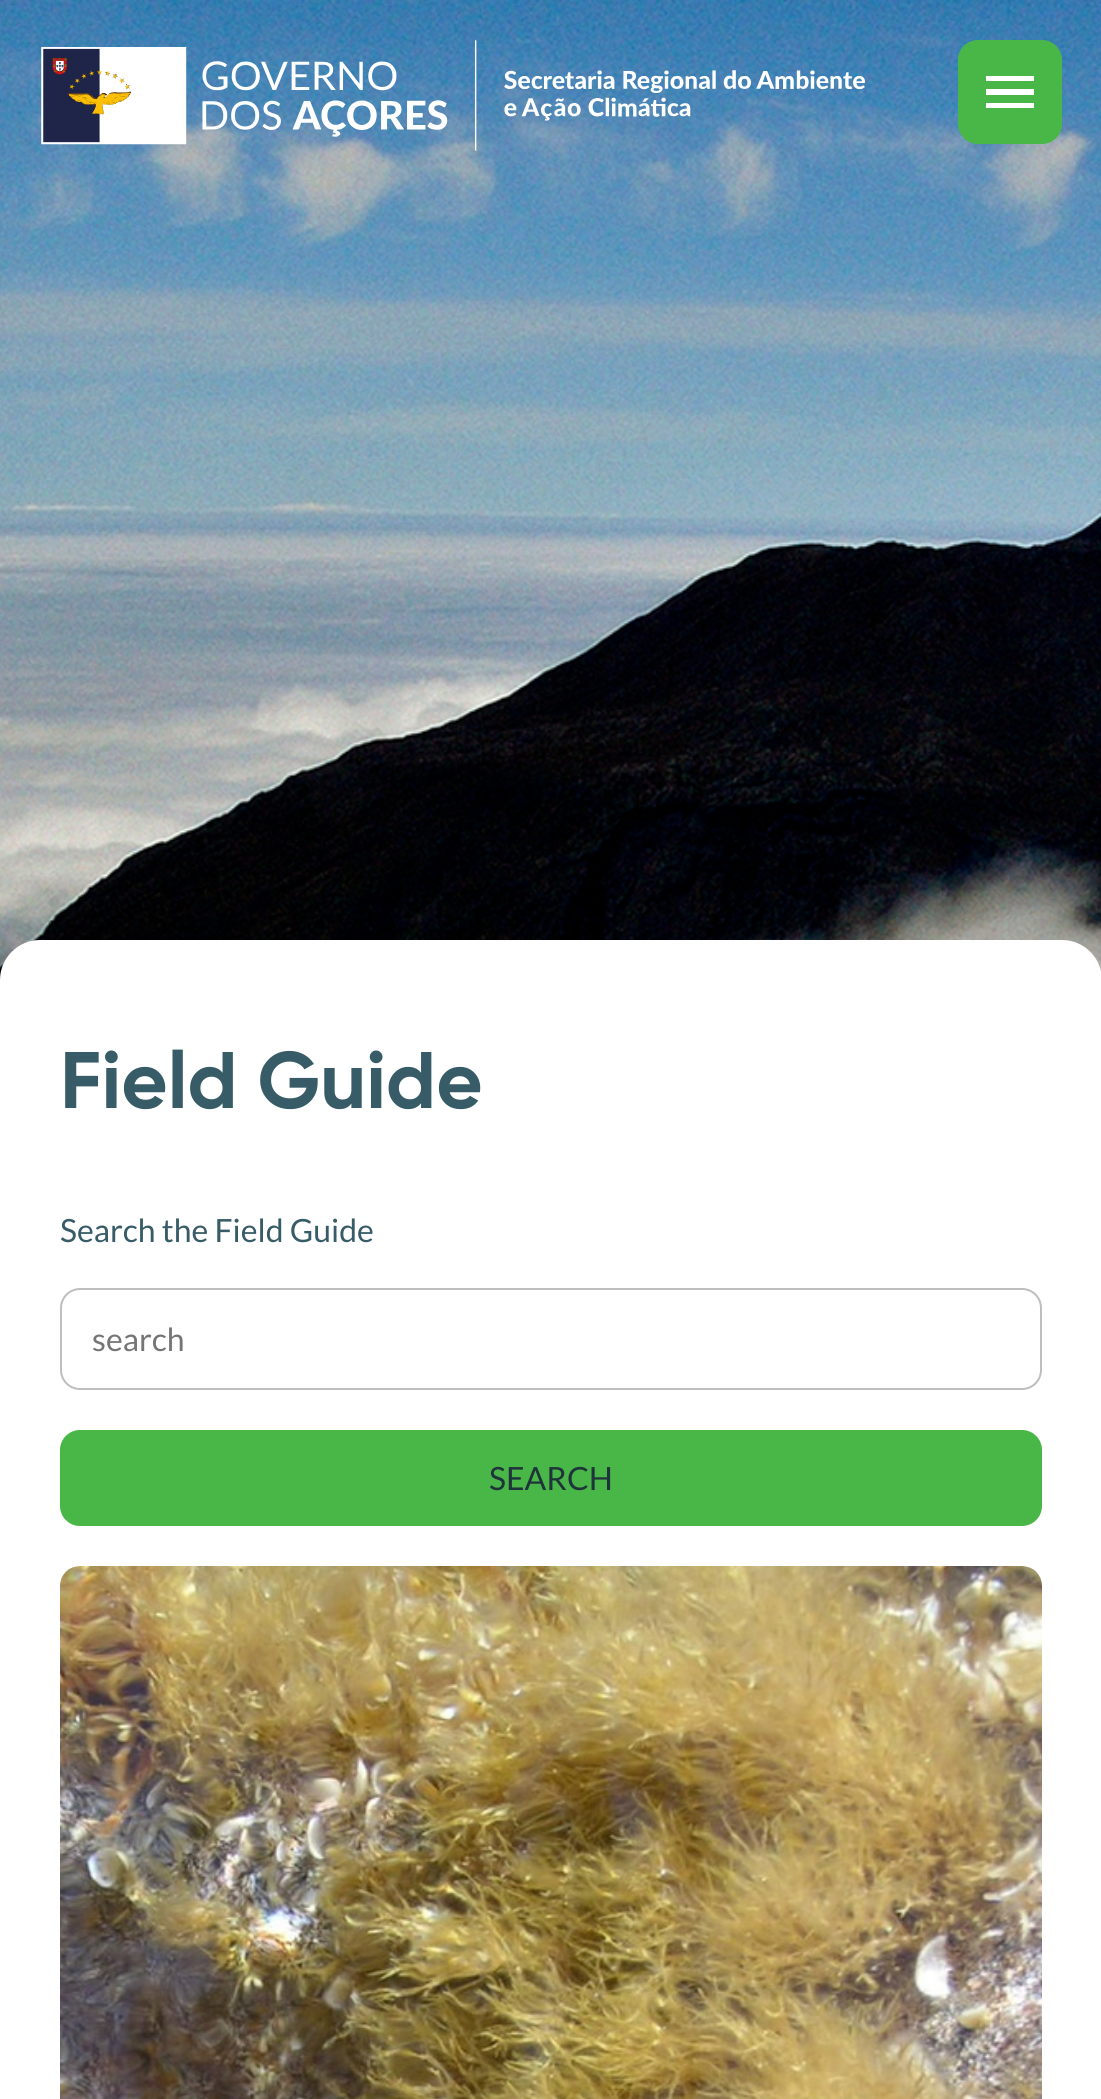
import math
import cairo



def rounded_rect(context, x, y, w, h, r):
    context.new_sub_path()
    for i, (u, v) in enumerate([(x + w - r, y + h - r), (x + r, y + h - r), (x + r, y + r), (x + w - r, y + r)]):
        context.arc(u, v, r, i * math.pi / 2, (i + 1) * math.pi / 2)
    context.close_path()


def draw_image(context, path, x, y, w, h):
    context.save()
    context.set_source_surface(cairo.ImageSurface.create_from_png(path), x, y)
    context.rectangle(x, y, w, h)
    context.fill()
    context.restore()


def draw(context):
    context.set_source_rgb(1, 1, 1)
    context.paint()
    draw_image(context, "images/1.png", 0, 0, 1101, 980)
    draw_image(context, "images/2.png", 41, 40, 824, 111)
    context.set_source_rgb(73 / 255, 183 / 255, 72 / 255)
    rounded_rect(context, 958, 40, 104, 104, 20)
    context.fill()
    context.set_source_rgb(1, 1, 1)
    context.set_fill_rule(cairo.FillRule.EVEN_ODD)
    context.new_path()
    context.move_to(986, 108)
    context.line_to(1034, 108)
    context.line_to(1034, 103)
    context.line_to(986, 103)
    context.close_path()
    context.move_to(986, 95)
    context.line_to(1034, 95)
    context.line_to(1034, 89)
    context.line_to(986, 89)
    context.close_path()
    context.move_to(986, 76)
    context.line_to(986, 81)
    context.line_to(1034, 81)
    context.line_to(1034, 76)
    context.close_path()
    context.fill()
    context.new_path()
    context.move_to(40, 940)
    context.line_to(1062, 940)
    context.curve_to(1084, 940, 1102, 958, 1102, 980)
    context.line_to(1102, 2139)
    context.line_to(0, 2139)
    context.line_to(0, 980)
    context.curve_to(0, 958, 18, 940, 40, 940)
    context.close_path()
    context.fill()
    rounded_rect(context, 61, 1289, 980, 100, 19)
    context.set_source_rgb(190 / 255, 190 / 255, 190 / 255)
    context.stroke()
    context.set_source_rgb(73 / 255, 183 / 255, 72 / 255)
    rounded_rect(context, 60, 1430, 982, 96, 20)
    context.fill()
    draw_image(context, "images/3.png", 60, 1566, 982, 533)
    context.select_font_face("Gilroy", cairo.FontSlant.NORMAL, cairo.FontWeight.BOLD)
    context.set_font_size(80)
    context.set_source_rgb(55 / 255, 92 / 255, 104 / 255)
    context.move_to(60, 1108)
    context.show_text("Field Guide")
    context.select_font_face("Lato")
    context.set_font_size(32)
    context.move_to(60, 1242)
    context.show_text("Search the Field Guide")
    context.set_source_rgb(117 / 255, 117 / 255, 117 / 255)
    context.move_to(92, 1351)
    context.show_text("search")
    context.set_source_rgb(31 / 255, 51 / 255, 58 / 255)
    context.move_to(489, 1490)
    context.show_text("SEARCH")


surface = cairo.ImageSurface(cairo.Format.RGB24, 1101, 2099)
context = cairo.Context(surface)
options = cairo.FontOptions()
options.set_hint_metrics(cairo.HintMetrics.OFF)
options.set_hint_style(cairo.HintStyle.NONE)
context.set_font_options(options)
context.set_miter_limit(4)
draw(context)
surface.write_to_png("out.png")
